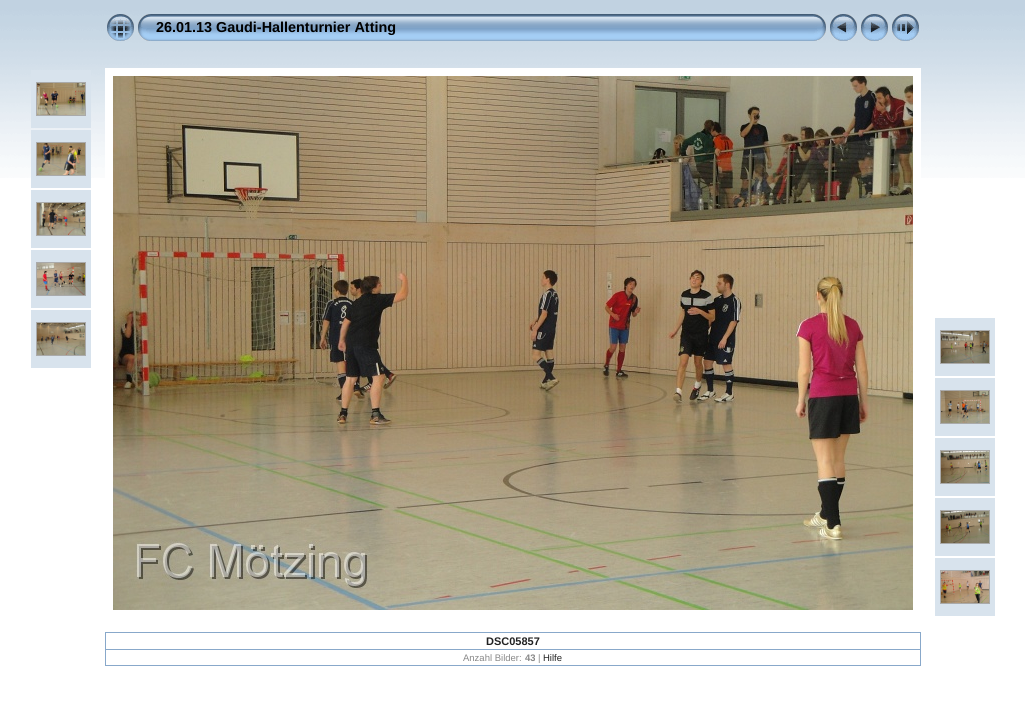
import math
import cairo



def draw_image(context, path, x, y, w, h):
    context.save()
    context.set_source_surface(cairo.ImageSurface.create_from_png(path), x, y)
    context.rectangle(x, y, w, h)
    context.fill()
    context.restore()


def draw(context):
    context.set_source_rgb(1, 1, 1)
    context.paint()
    draw_image(context, "images/1.png", 0, 0, 1025, 178)
    draw_image(context, "images/2.png", 107, 14, 27, 27)
    draw_image(context, "images/3.png", 138, 14, 18, 27)
    draw_image(context, "images/4.png", 156, 14, 652, 27)
    draw_image(context, "images/5.png", 808, 14, 18, 27)
    draw_image(context, "images/6.png", 830, 14, 27, 27)
    draw_image(context, "images/7.png", 861, 14, 27, 27)
    draw_image(context, "images/8.png", 892, 14, 27, 27)
    context.set_source_rgb(216 / 255, 227 / 255, 237 / 255)
    context.rectangle(31, 70, 60, 58)
    context.fill()
    context.rectangle(36.5, 82.5, 49, 33)
    context.set_source_rgb(170 / 255, 170 / 255, 170 / 255)
    context.set_line_width(1)
    context.stroke()
    draw_image(context, "images/9.png", 37, 83, 48, 32)
    context.set_source_rgb(216 / 255, 227 / 255, 237 / 255)
    context.rectangle(31, 130, 60, 58)
    context.fill()
    context.rectangle(36.5, 142.5, 49, 33)
    context.set_source_rgb(170 / 255, 170 / 255, 170 / 255)
    context.stroke()
    draw_image(context, "images/10.png", 37, 143, 48, 32)
    context.set_source_rgb(216 / 255, 227 / 255, 237 / 255)
    context.rectangle(31, 190, 60, 58)
    context.fill()
    context.rectangle(36.5, 202.5, 49, 33)
    context.set_source_rgb(170 / 255, 170 / 255, 170 / 255)
    context.stroke()
    draw_image(context, "images/11.png", 37, 203, 48, 32)
    context.set_source_rgb(216 / 255, 227 / 255, 237 / 255)
    context.rectangle(31, 250, 60, 58)
    context.fill()
    context.rectangle(36.5, 262.5, 49, 33)
    context.set_source_rgb(170 / 255, 170 / 255, 170 / 255)
    context.stroke()
    draw_image(context, "images/12.png", 37, 263, 48, 32)
    context.set_source_rgb(216 / 255, 227 / 255, 237 / 255)
    context.rectangle(31, 310, 60, 58)
    context.fill()
    context.rectangle(36.5, 322.5, 49, 33)
    context.set_source_rgb(170 / 255, 170 / 255, 170 / 255)
    context.stroke()
    draw_image(context, "images/13.png", 37, 323, 48, 32)
    context.rectangle(109, 72, 808, 542)
    context.set_source_rgb(1, 1, 1)
    context.set_line_width(8)
    context.stroke()
    draw_image(context, "images/14.png", 113, 76, 800, 534)
    context.set_source_rgb(216 / 255, 227 / 255, 237 / 255)
    context.rectangle(935, 318, 60, 58)
    context.fill()
    context.rectangle(940.5, 330.5, 49, 33)
    context.set_source_rgb(170 / 255, 170 / 255, 170 / 255)
    context.set_line_width(1)
    context.stroke()
    draw_image(context, "images/15.png", 941, 331, 48, 32)
    context.set_source_rgb(216 / 255, 227 / 255, 237 / 255)
    context.rectangle(935, 378, 60, 58)
    context.fill()
    context.rectangle(940.5, 390.5, 49, 33)
    context.set_source_rgb(170 / 255, 170 / 255, 170 / 255)
    context.stroke()
    draw_image(context, "images/16.png", 941, 391, 48, 32)
    context.set_source_rgb(216 / 255, 227 / 255, 237 / 255)
    context.rectangle(935, 438, 60, 58)
    context.fill()
    context.rectangle(940.5, 450.5, 49, 33)
    context.set_source_rgb(170 / 255, 170 / 255, 170 / 255)
    context.stroke()
    draw_image(context, "images/17.png", 941, 451, 48, 32)
    context.set_source_rgb(216 / 255, 227 / 255, 237 / 255)
    context.rectangle(935, 498, 60, 58)
    context.fill()
    context.rectangle(940.5, 510.5, 49, 33)
    context.set_source_rgb(170 / 255, 170 / 255, 170 / 255)
    context.stroke()
    draw_image(context, "images/18.png", 941, 511, 48, 32)
    context.set_source_rgb(216 / 255, 227 / 255, 237 / 255)
    context.rectangle(935, 558, 60, 58)
    context.fill()
    context.rectangle(940.5, 570.5, 49, 33)
    context.set_source_rgb(170 / 255, 170 / 255, 170 / 255)
    context.stroke()
    draw_image(context, "images/19.png", 941, 571, 48, 32)
    context.set_source_rgb(136 / 255, 168 / 255, 202 / 255)
    context.rectangle(105, 632, 816, 1)
    context.fill()
    context.rectangle(920, 632, 1, 34)
    context.fill()
    context.rectangle(105, 665, 816, 1)
    context.fill()
    context.rectangle(105, 632, 1, 34)
    context.fill()
    context.rectangle(105, 649, 816, 1)
    context.fill()
    context.select_font_face("Liberation Sans", cairo.FontSlant.NORMAL, cairo.FontWeight.BOLD)
    context.set_font_size(14.4)
    context.set_source_rgb(0, 0, 0)
    context.move_to(156, 32)
    context.show_text("26.01.13 Gaudi-Hallenturnier Atting")
    context.set_font_size(11)
    context.set_source_rgb(34 / 255, 34 / 255, 34 / 255)
    context.move_to(486, 645)
    context.show_text("DSC05857")
    context.select_font_face("Liberation Sans")
    context.set_font_size(9.5)
    context.set_source_rgb(136 / 255, 136 / 255, 136 / 255)
    context.move_to(463, 661)
    context.show_text("Anzahl Bilder:")
    context.select_font_face("Liberation Sans", cairo.FontSlant.NORMAL, cairo.FontWeight.BOLD)
    context.move_to(525, 661)
    context.show_text("43")
    context.select_font_face("Liberation Sans")
    context.move_to(538, 661)
    context.show_text("|")
    context.set_source_rgb(34 / 255, 34 / 255, 34 / 255)
    context.move_to(543, 661)
    context.show_text("Hilfe")


surface = cairo.ImageSurface(cairo.Format.RGB24, 1025, 724)
context = cairo.Context(surface)
options = cairo.FontOptions()
options.set_hint_metrics(cairo.HintMetrics.OFF)
options.set_hint_style(cairo.HintStyle.NONE)
context.set_font_options(options)
context.set_miter_limit(4)
draw(context)
surface.write_to_png("out.png")
